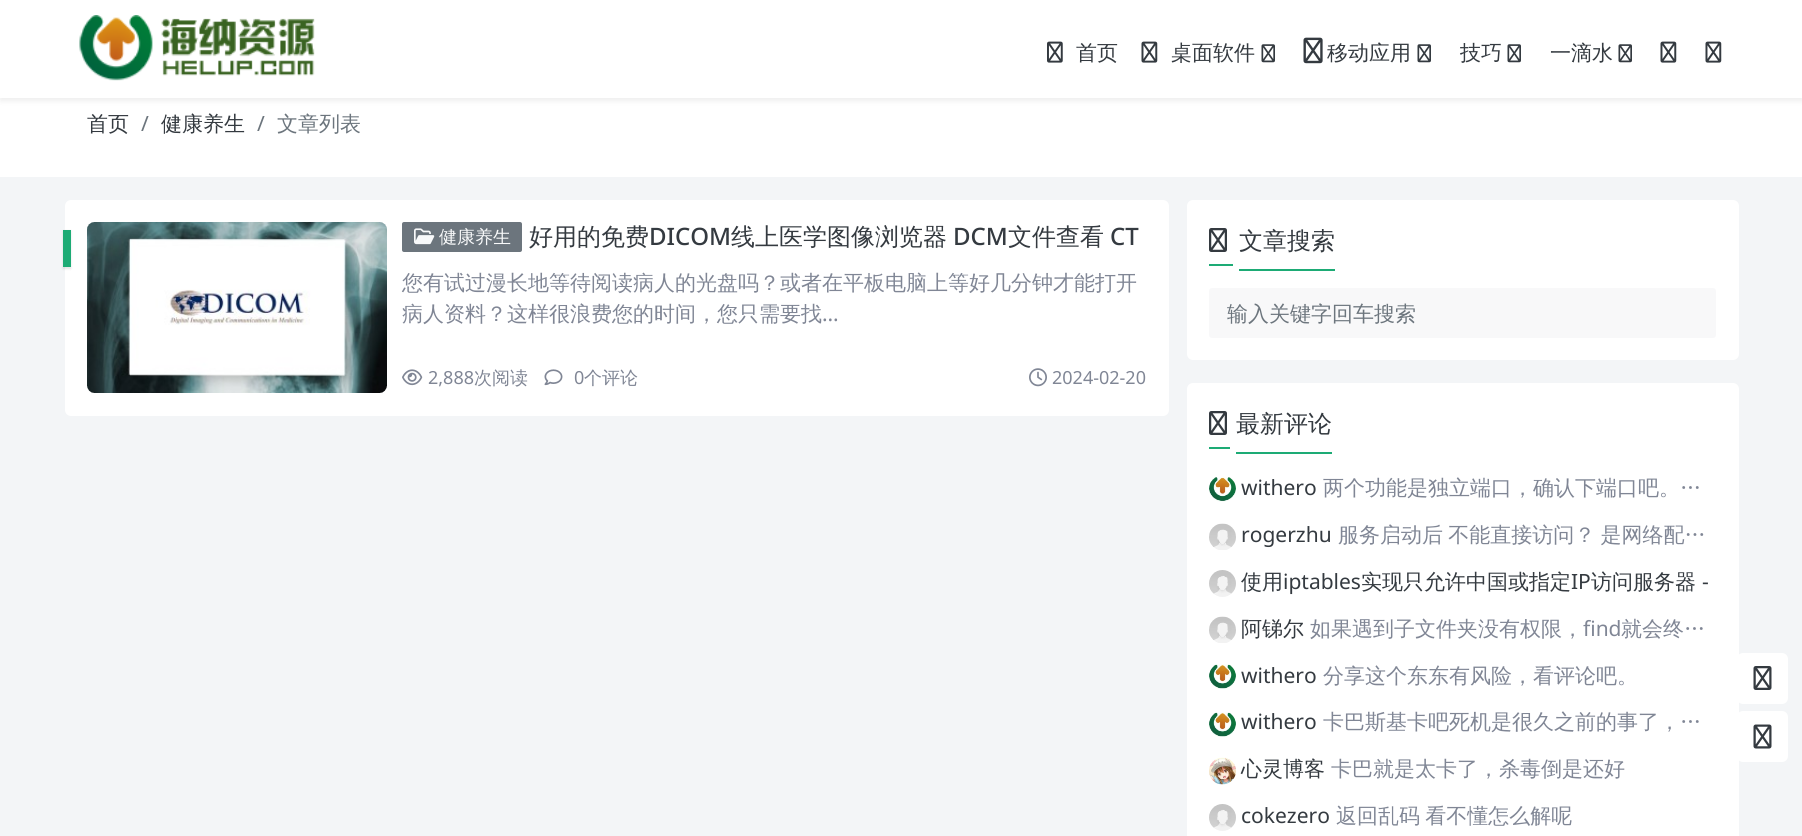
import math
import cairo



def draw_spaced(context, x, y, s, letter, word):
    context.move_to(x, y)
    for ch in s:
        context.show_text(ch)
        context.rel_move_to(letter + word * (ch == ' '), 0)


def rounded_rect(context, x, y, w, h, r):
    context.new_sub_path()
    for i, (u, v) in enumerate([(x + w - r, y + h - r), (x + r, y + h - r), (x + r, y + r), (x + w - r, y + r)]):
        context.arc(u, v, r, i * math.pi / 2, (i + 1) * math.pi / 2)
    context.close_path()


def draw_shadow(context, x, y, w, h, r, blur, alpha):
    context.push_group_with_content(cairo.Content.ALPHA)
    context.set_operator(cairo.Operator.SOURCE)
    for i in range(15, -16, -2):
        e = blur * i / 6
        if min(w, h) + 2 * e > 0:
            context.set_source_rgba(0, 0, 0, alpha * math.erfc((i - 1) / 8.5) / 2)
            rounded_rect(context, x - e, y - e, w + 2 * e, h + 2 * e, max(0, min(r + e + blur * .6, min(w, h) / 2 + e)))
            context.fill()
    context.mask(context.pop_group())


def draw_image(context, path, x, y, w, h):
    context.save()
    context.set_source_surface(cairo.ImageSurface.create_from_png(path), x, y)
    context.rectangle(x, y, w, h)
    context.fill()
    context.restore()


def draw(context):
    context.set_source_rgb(243 / 255, 245 / 255, 247 / 255)
    context.paint()
    context.set_source_rgb(1, 1, 1)
    context.rectangle(0, 0, 1802, 177)
    context.fill()
    context.save()
    context.set_fill_rule(cairo.FillRule.EVEN_ODD)
    context.new_path()
    context.move_to(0, 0)
    context.line_to(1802, 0)
    context.line_to(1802, 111)
    context.line_to(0, 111)
    context.close_path()
    context.move_to(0, 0)
    context.line_to(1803, 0)
    context.line_to(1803, 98)
    context.line_to(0, 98)
    context.close_path()
    context.clip()
    context.set_source_rgb(0, 0, 0)
    draw_shadow(context, 0, 3, 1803, 98, 0, 3, 0.07)
    context.restore()
    draw_image(context, "images/1.png", 79, 15, 236, 66)
    draw_image(context, "images/2.png", 1047, 41, 16, 22)
    draw_image(context, "images/3.png", 1141, 41, 17, 22)
    draw_image(context, "images/4.png", 1261, 44, 14, 19)
    draw_image(context, "images/5.png", 1303, 37, 20, 27)
    draw_image(context, "images/4.png", 1417, 44, 14, 19)
    draw_image(context, "images/4.png", 1507, 44, 14, 19)
    draw_image(context, "images/4.png", 1618, 44, 14, 19)
    draw_image(context, "images/3.png", 1660, 41, 17, 22)
    draw_image(context, "images/3.png", 1705, 41, 17, 22)
    rounded_rect(context, 65, 200, 1104, 216, 6)
    context.fill()
    context.set_source_rgb(0, 0, 0)
    draw_shadow(context, 63, 231, 8, 38, 0, 1, 0.1)
    context.set_source_rgb(29 / 255, 171 / 255, 117 / 255)
    context.rectangle(63, 230, 8, 37)
    context.fill()
    draw_image(context, "images/6.png", 87, 222, 300, 171)
    context.set_source_rgb(108 / 255, 117 / 255, 125 / 255)
    rounded_rect(context, 402, 222, 120, 30, 2)
    context.fill()
    draw_image(context, "images/7.png", 414, 228, 21, 17)
    draw_image(context, "images/8.png", 402, 369, 21, 17)
    draw_image(context, "images/9.png", 544, 369, 19, 17)
    draw_image(context, "images/10.png", 1029, 368, 18, 19)
    context.set_source_rgb(1, 1, 1)
    rounded_rect(context, 1187, 200, 552, 160, 6)
    context.fill()
    context.set_source_rgb(29 / 255, 171 / 255, 117 / 255)
    context.rectangle(1209, 264, 24, 2)
    context.fill()
    context.rectangle(1239, 269, 96, 2)
    context.fill()
    draw_image(context, "images/11.png", 1209, 228, 18, 24)
    context.set_source_rgb(248 / 255, 248 / 255, 249 / 255)
    rounded_rect(context, 1209, 288, 507, 50, 3)
    context.fill()
    context.set_source_rgb(1, 1, 1)
    rounded_rect(context, 1187, 383, 552, 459, 6)
    context.fill()
    context.set_source_rgb(29 / 255, 171 / 255, 117 / 255)
    context.rectangle(1209, 447, 21, 2)
    context.fill()
    context.rectangle(1236, 452, 96, 2)
    context.fill()
    draw_image(context, "images/11.png", 1209, 411, 18, 24)
    draw_image(context, "images/12.png", 1209, 477, 27, 25)
    draw_image(context, "images/13.png", 1209, 523, 27, 27)
    draw_image(context, "images/14.png", 1209, 570, 27, 27)
    draw_image(context, "images/13.png", 1209, 616, 27, 27)
    draw_image(context, "images/15.png", 1209, 664, 27, 25)
    draw_image(context, "images/15.png", 1209, 712, 27, 25)
    draw_image(context, "images/16.png", 1209, 757, 27, 28)
    draw_image(context, "images/14.png", 1209, 804, 27, 27)
    context.set_source_rgb(1, 1, 1)
    rounded_rect(context, 1737, 653, 51, 51, 6)
    context.fill()
    draw_image(context, "images/17.png", 1753, 666, 19, 24)
    rounded_rect(context, 1737, 711, 51, 51, 6)
    context.fill()
    draw_image(context, "images/18.png", 1753, 724, 19, 25)
    context.select_font_face("WenQuanYi Zen Hei Medium")
    context.set_font_size(21)
    context.set_source_rgb(52 / 255, 58 / 255, 64 / 255)
    context.move_to(1076, 60)
    context.show_text("首页")
    context.move_to(1171, 60)
    context.show_text("桌面软件")
    context.move_to(1327, 60)
    context.show_text("移动应用")
    context.move_to(1460, 60)
    context.show_text("技巧")
    context.move_to(1550, 60)
    context.show_text("一滴水")
    context.move_to(87, 131)
    context.show_text("首页")
    context.select_font_face("Noto Sans")
    context.set_source_rgb(108 / 255, 117 / 255, 125 / 255)
    context.move_to(141, 131)
    context.show_text("/")
    context.select_font_face("WenQuanYi Zen Hei Medium")
    context.set_source_rgb(52 / 255, 58 / 255, 64 / 255)
    context.move_to(161, 131)
    context.show_text("健康养生")
    context.select_font_face("Noto Sans")
    context.set_source_rgb(108 / 255, 117 / 255, 125 / 255)
    context.move_to(257, 131)
    context.show_text("/")
    context.select_font_face("WenQuanYi Zen Hei Medium")
    context.move_to(277, 131)
    context.show_text("文章列表")
    context.set_font_size(18)
    context.set_source_rgb(248 / 255, 249 / 255, 250 / 255)
    context.move_to(439, 243)
    context.show_text("健康养生")
    context.set_font_size(24)
    context.set_source_rgb(52 / 255, 58 / 255, 64 / 255)
    context.move_to(529, 245)
    context.show_text("好用的免费")
    context.select_font_face("Noto Sans Medium")
    context.move_to(649, 245)
    context.show_text("DICOM")
    context.select_font_face("WenQuanYi Zen Hei Medium")
    context.move_to(731, 245)
    context.show_text("线上医学图像浏览器")
    context.select_font_face("Noto Sans Medium")
    context.move_to(953, 245)
    context.show_text("DCM")
    context.select_font_face("WenQuanYi Zen Hei Medium")
    context.move_to(1008, 245)
    context.show_text("文件查看")
    context.select_font_face("Noto Sans Medium")
    context.move_to(1110, 245)
    context.show_text("CT")
    context.select_font_face("WenQuanYi Zen Hei Medium")
    context.set_font_size(21)
    context.set_source_rgb(128 / 255, 134 / 255, 149 / 255)
    context.move_to(402, 290)
    context.show_text("您有试过漫长地等待阅读病人的光盘吗？或者在平板电脑上等好几分钟才能打开")
    context.move_to(402, 321)
    context.show_text("病人资料？这样很浪费您的时间，您只需要找")
    context.select_font_face("Noto Sans")
    context.move_to(822, 321)
    context.show_text("…")
    context.set_font_size(18)
    context.move_to(428, 384)
    context.show_text("2,888")
    context.select_font_face("WenQuanYi Zen Hei Medium")
    context.move_to(474, 384)
    context.show_text("次阅读")
    context.select_font_face("Noto Sans")
    context.move_to(574, 384)
    context.show_text("0")
    context.select_font_face("WenQuanYi Zen Hei Medium")
    context.move_to(584, 384)
    context.show_text("个评论")
    context.select_font_face("Noto Sans")
    context.move_to(1052, 384)
    context.show_text("2024-02-20")
    context.select_font_face("WenQuanYi Zen Hei Medium")
    context.set_font_size(24)
    context.set_source_rgb(52 / 255, 58 / 255, 64 / 255)
    context.move_to(1239, 249)
    context.show_text("文章搜索")
    context.set_font_size(21)
    context.set_source_rgb(108 / 255, 117 / 255, 125 / 255)
    context.move_to(1227, 321)
    context.show_text("输入关键字回车搜索")
    context.set_font_size(24)
    context.set_source_rgb(52 / 255, 58 / 255, 64 / 255)
    context.move_to(1236, 432)
    context.show_text("最新评论")
    context.select_font_face("Noto Sans")
    context.set_font_size(21)
    context.move_to(1241, 495)
    context.show_text("withero")
    context.select_font_face("WenQuanYi Zen Hei Medium")
    context.set_source_rgb(128 / 255, 134 / 255, 149 / 255)
    context.move_to(1323, 495)
    context.show_text("两个功能是独立端口，确认下端口吧。…")
    context.select_font_face("Noto Sans")
    context.set_source_rgb(52 / 255, 58 / 255, 64 / 255)
    context.move_to(1241, 542)
    context.show_text("rogerzhu")
    context.select_font_face("WenQuanYi Zen Hei Medium")
    context.set_source_rgb(128 / 255, 134 / 255, 149 / 255)
    draw_spaced(context, 1338, 542, "服务启动后 不能直接访问？ 是网络配…", 0, -1)
    context.set_source_rgb(52 / 255, 58 / 255, 64 / 255)
    context.move_to(1241, 589)
    context.show_text("使用")
    context.select_font_face("Noto Sans")
    context.move_to(1283, 589)
    context.show_text("iptables")
    context.select_font_face("WenQuanYi Zen Hei Medium")
    context.move_to(1361, 589)
    context.show_text("实现只允许中国或指定")
    context.select_font_face("Noto Sans")
    context.move_to(1571, 589)
    context.show_text("IP")
    context.select_font_face("WenQuanYi Zen Hei Medium")
    context.move_to(1591, 589)
    context.show_text("访问服务器")
    context.select_font_face("Noto Sans")
    context.move_to(1702, 589)
    context.show_text("-")
    context.select_font_face("WenQuanYi Zen Hei Medium")
    context.move_to(1241, 636)
    context.show_text("阿锑尔")
    context.set_source_rgb(128 / 255, 134 / 255, 149 / 255)
    context.move_to(1310, 636)
    context.show_text("如果遇到子文件夹没有权限，")
    context.select_font_face("Noto Sans")
    context.move_to(1583, 636)
    context.show_text("find")
    context.select_font_face("WenQuanYi Zen Hei Medium")
    context.move_to(1621, 636)
    context.show_text("就会终…")
    context.select_font_face("Noto Sans")
    context.set_source_rgb(52 / 255, 58 / 255, 64 / 255)
    context.move_to(1241, 683)
    context.show_text("withero")
    context.select_font_face("WenQuanYi Zen Hei Medium")
    context.set_source_rgb(128 / 255, 134 / 255, 149 / 255)
    context.move_to(1323, 683)
    context.show_text("分享这个东东有风险，看评论吧。")
    context.select_font_face("Noto Sans")
    context.set_source_rgb(52 / 255, 58 / 255, 64 / 255)
    context.move_to(1241, 729)
    context.show_text("withero")
    context.select_font_face("WenQuanYi Zen Hei Medium")
    context.set_source_rgb(128 / 255, 134 / 255, 149 / 255)
    context.move_to(1323, 729)
    context.show_text("卡巴斯基卡吧死机是很久之前的事了，…")
    context.set_source_rgb(52 / 255, 58 / 255, 64 / 255)
    context.move_to(1241, 776)
    context.show_text("心灵博客")
    context.set_source_rgb(128 / 255, 134 / 255, 149 / 255)
    context.move_to(1331, 776)
    context.show_text("卡巴就是太卡了，杀毒倒是还好")
    context.select_font_face("Noto Sans")
    context.set_source_rgb(52 / 255, 58 / 255, 64 / 255)
    context.move_to(1241, 823)
    context.show_text("cokezero")
    context.select_font_face("WenQuanYi Zen Hei Medium")
    context.set_source_rgb(128 / 255, 134 / 255, 149 / 255)
    draw_spaced(context, 1336, 823, "返回乱码 看不懂怎么解呢", 0, -1)


surface = cairo.ImageSurface(cairo.Format.RGB24, 1802, 836)
context = cairo.Context(surface)
options = cairo.FontOptions()
options.set_hint_metrics(cairo.HintMetrics.OFF)
options.set_hint_style(cairo.HintStyle.NONE)
context.set_font_options(options)
context.set_miter_limit(4)
draw(context)
surface.write_to_png("out.png")
